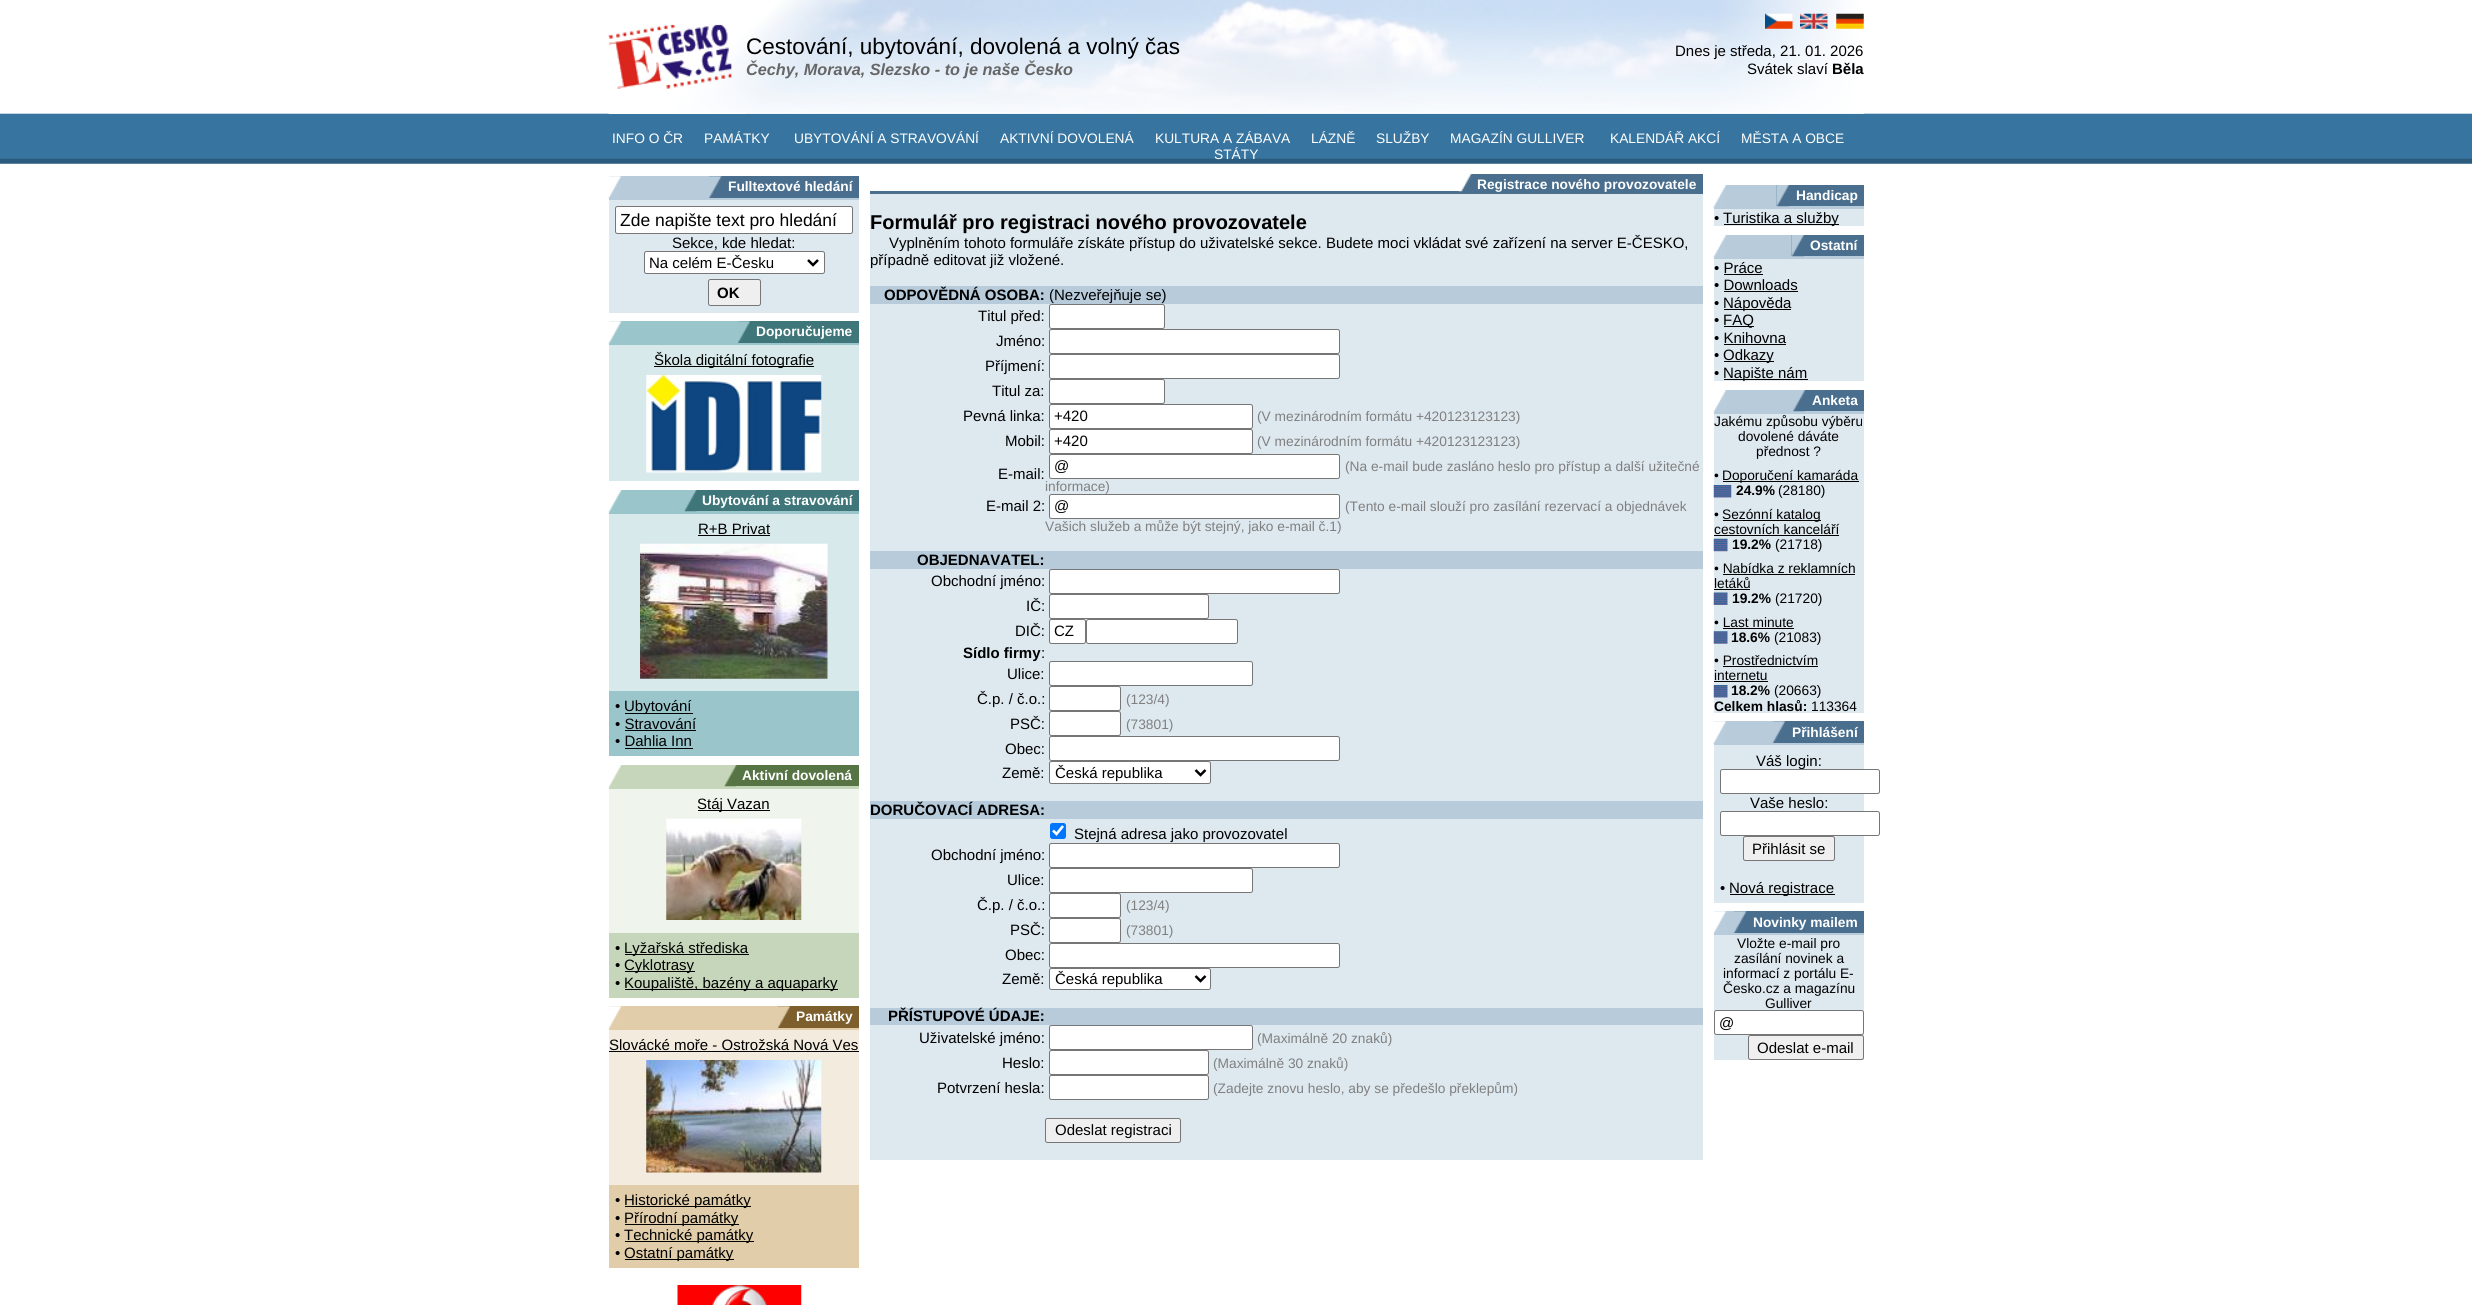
import math
import cairo



def rounded_rect(context, x, y, w, h, r):
    context.new_sub_path()
    for i, (u, v) in enumerate([(x + w - r, y + h - r), (x + r, y + h - r), (x + r, y + r), (x + w - r, y + r)]):
        context.arc(u, v, r, i * math.pi / 2, (i + 1) * math.pi / 2)
    context.close_path()


def draw_image(context, path, x, y, w, h):
    context.save()
    context.set_source_surface(cairo.ImageSurface.create_from_png(path), x, y)
    context.rectangle(x, y, w, h)
    context.fill()
    context.restore()


def draw(context):
    context.set_source_rgb(1, 1, 1)
    context.paint()
    draw_image(context, "images/1.png", 0, 113, 2472, 51)
    draw_image(context, "images/2.png", 608, 0, 1256, 114)
    draw_image(context, "images/3.png", 608, 24, 138, 90)
    draw_image(context, "images/4.png", 1765, 13, 28, 16)
    draw_image(context, "images/5.png", 1800, 13, 28, 16)
    draw_image(context, "images/6.png", 1836, 13, 28, 16)
    context.set_source_rgb(222 / 255, 232 / 255, 239 / 255)
    context.rectangle(609, 200, 250, 113)
    context.fill()
    context.set_source_rgb(183 / 255, 203 / 255, 219 / 255)
    context.rectangle(609, 176, 250, 24)
    context.fill()
    draw_image(context, "images/7.png", 608, 176, 14, 23)
    context.set_source_rgb(74 / 255, 111 / 255, 142 / 255)
    context.rectangle(709, 176, 150, 22)
    context.fill()
    draw_image(context, "images/8.png", 708, 176, 14, 22)
    context.set_source_rgb(1, 1, 1)
    rounded_rect(context, 615.5, 206.5, 237, 27, 2)
    context.fill_preserve()
    context.set_source_rgb(118 / 255, 118 / 255, 118 / 255)
    context.set_line_width(1)
    context.stroke()
    context.set_source_rgb(1, 1, 1)
    rounded_rect(context, 644.5, 251.5, 180, 22, 2)
    context.fill_preserve()
    context.set_source_rgb(118 / 255, 118 / 255, 118 / 255)
    context.stroke()
    context.new_path()
    context.move_to(808, 260)
    context.line_to(813, 265)
    context.line_to(818, 260)
    context.set_source_rgb(0, 0, 0)
    context.set_line_width(2.5)
    context.stroke()
    context.set_source_rgb(239 / 255, 239 / 255, 239 / 255)
    rounded_rect(context, 708.5, 279.5, 52, 26, 2)
    context.fill_preserve()
    context.set_source_rgb(118 / 255, 118 / 255, 118 / 255)
    context.set_line_width(1)
    context.stroke()
    context.set_source_rgb(216 / 255, 233 / 255, 235 / 255)
    context.rectangle(609, 345, 250, 136)
    context.fill()
    context.set_source_rgb(154 / 255, 198 / 255, 203 / 255)
    context.rectangle(609, 321, 250, 24)
    context.fill()
    draw_image(context, "images/9.png", 608, 321, 14, 23)
    context.set_source_rgb(63 / 255, 118 / 255, 122 / 255)
    context.rectangle(738, 321, 121, 22)
    context.fill()
    draw_image(context, "images/10.png", 737, 321, 13, 22)
    context.set_source_rgb(0, 0, 0)
    context.rectangle(654, 366, 160, 1)
    context.fill()
    draw_image(context, "images/11.png", 646, 375, 176, 98)
    context.set_source_rgb(216 / 255, 233 / 255, 235 / 255)
    context.rectangle(609, 514, 250, 177)
    context.fill()
    context.set_source_rgb(154 / 255, 198 / 255, 203 / 255)
    context.rectangle(609, 490, 250, 24)
    context.fill()
    draw_image(context, "images/12.png", 608, 490, 14, 23)
    context.set_source_rgb(63 / 255, 118 / 255, 122 / 255)
    context.rectangle(696, 490, 163, 21)
    context.fill()
    draw_image(context, "images/13.png", 684, 490, 13, 22)
    context.set_source_rgb(0, 0, 0)
    context.rectangle(698, 535, 72, 1)
    context.fill()
    draw_image(context, "images/14.png", 640, 543, 188, 136)
    context.set_source_rgb(154 / 255, 198 / 255, 203 / 255)
    context.rectangle(609, 691, 250, 65)
    context.fill()
    context.set_source_rgb(0, 0, 0)
    context.rectangle(625, 713, 68, 1)
    context.fill()
    context.rectangle(625, 730, 71, 1)
    context.fill()
    context.rectangle(625, 748, 68, 1)
    context.fill()
    context.set_source_rgb(239 / 255, 244 / 255, 236 / 255)
    context.rectangle(609, 789, 250, 144)
    context.fill()
    context.set_source_rgb(197 / 255, 214 / 255, 186 / 255)
    context.rectangle(609, 765, 250, 24)
    context.fill()
    draw_image(context, "images/15.png", 608, 765, 14, 23)
    context.set_source_rgb(87 / 255, 116 / 255, 69 / 255)
    context.rectangle(736, 765, 123, 21)
    context.fill()
    draw_image(context, "images/16.png", 724, 765, 13, 22)
    context.set_source_rgb(0, 0, 0)
    context.rectangle(698, 810, 72, 1)
    context.fill()
    draw_image(context, "images/17.png", 666, 818, 136, 102)
    context.set_source_rgb(197 / 255, 214 / 255, 186 / 255)
    context.rectangle(609, 933, 250, 65)
    context.fill()
    context.set_source_rgb(0, 0, 0)
    context.rectangle(625, 954, 124, 1)
    context.fill()
    context.rectangle(625, 971, 70, 1)
    context.fill()
    context.rectangle(625, 989, 213, 1)
    context.fill()
    context.set_source_rgb(243 / 255, 236 / 255, 222 / 255)
    context.rectangle(609, 1030, 250, 155)
    context.fill()
    context.set_source_rgb(225 / 255, 205 / 255, 170 / 255)
    context.rectangle(609, 1006, 250, 24)
    context.fill()
    draw_image(context, "images/18.png", 608, 1006, 14, 23)
    context.set_source_rgb(124 / 255, 95 / 255, 44 / 255)
    context.rectangle(778, 1006, 81, 22)
    context.fill()
    draw_image(context, "images/19.png", 777, 1006, 13, 22)
    context.set_source_rgb(0, 0, 0)
    context.rectangle(609, 1051, 250, 1)
    context.fill()
    draw_image(context, "images/20.png", 646, 1060, 176, 113)
    context.set_source_rgb(225 / 255, 205 / 255, 170 / 255)
    context.rectangle(609, 1185, 250, 83)
    context.fill()
    context.set_source_rgb(0, 0, 0)
    context.rectangle(625, 1206, 126, 1)
    context.fill()
    context.rectangle(625, 1224, 114, 1)
    context.fill()
    context.rectangle(625, 1241, 129, 1)
    context.fill()
    context.rectangle(625, 1259, 109, 1)
    context.fill()
    draw_image(context, "images/21.png", 677, 1285, 125, 20)
    context.set_source_rgb(74 / 255, 111 / 255, 142 / 255)
    context.rectangle(1471, 174, 232, 17)
    context.fill()
    context.rectangle(870, 191, 833, 3)
    context.fill()
    draw_image(context, "images/22.png", 1458, 173, 14, 19)
    context.set_source_rgb(222 / 255, 232 / 255, 239 / 255)
    context.rectangle(870, 194, 833, 966)
    context.fill()
    context.set_source_rgb(183 / 255, 203 / 255, 219 / 255)
    context.rectangle(870, 286, 833, 18)
    context.fill()
    context.set_source_rgb(1, 1, 1)
    rounded_rect(context, 1049.5, 304.5, 115, 24, 2)
    context.fill_preserve()
    context.set_source_rgb(118 / 255, 118 / 255, 118 / 255)
    context.stroke()
    context.set_source_rgb(1, 1, 1)
    rounded_rect(context, 1049.5, 329.5, 290, 24, 2)
    context.fill_preserve()
    context.set_source_rgb(118 / 255, 118 / 255, 118 / 255)
    context.stroke()
    context.set_source_rgb(1, 1, 1)
    rounded_rect(context, 1049.5, 354.5, 290, 24, 2)
    context.fill_preserve()
    context.set_source_rgb(118 / 255, 118 / 255, 118 / 255)
    context.stroke()
    context.set_source_rgb(1, 1, 1)
    rounded_rect(context, 1049.5, 379.5, 115, 24, 2)
    context.fill_preserve()
    context.set_source_rgb(118 / 255, 118 / 255, 118 / 255)
    context.stroke()
    context.set_source_rgb(1, 1, 1)
    rounded_rect(context, 1049.5, 404.5, 203, 24, 2)
    context.fill_preserve()
    context.set_source_rgb(118 / 255, 118 / 255, 118 / 255)
    context.stroke()
    context.set_source_rgb(1, 1, 1)
    rounded_rect(context, 1049.5, 429.5, 203, 24, 2)
    context.fill_preserve()
    context.set_source_rgb(118 / 255, 118 / 255, 118 / 255)
    context.stroke()
    context.set_source_rgb(1, 1, 1)
    rounded_rect(context, 1049.5, 454.5, 290, 24, 2)
    context.fill_preserve()
    context.set_source_rgb(118 / 255, 118 / 255, 118 / 255)
    context.stroke()
    context.set_source_rgb(1, 1, 1)
    rounded_rect(context, 1049.5, 494.5, 290, 24, 2)
    context.fill_preserve()
    context.set_source_rgb(118 / 255, 118 / 255, 118 / 255)
    context.stroke()
    context.set_source_rgb(183 / 255, 203 / 255, 219 / 255)
    context.rectangle(870, 551, 833, 18)
    context.fill()
    context.set_source_rgb(1, 1, 1)
    rounded_rect(context, 1049.5, 569.5, 290, 24, 2)
    context.fill_preserve()
    context.set_source_rgb(118 / 255, 118 / 255, 118 / 255)
    context.stroke()
    context.set_source_rgb(1, 1, 1)
    rounded_rect(context, 1049.5, 594.5, 159, 24, 2)
    context.fill_preserve()
    context.set_source_rgb(118 / 255, 118 / 255, 118 / 255)
    context.stroke()
    context.set_source_rgb(1, 1, 1)
    rounded_rect(context, 1049.5, 619.5, 36, 24, 2)
    context.fill_preserve()
    context.set_source_rgb(118 / 255, 118 / 255, 118 / 255)
    context.stroke()
    context.set_source_rgb(1, 1, 1)
    rounded_rect(context, 1086.5, 619.5, 151, 24, 2)
    context.fill_preserve()
    context.set_source_rgb(118 / 255, 118 / 255, 118 / 255)
    context.stroke()
    context.set_source_rgb(1, 1, 1)
    rounded_rect(context, 1049.5, 661.5, 203, 24, 2)
    context.fill_preserve()
    context.set_source_rgb(118 / 255, 118 / 255, 118 / 255)
    context.stroke()
    context.set_source_rgb(1, 1, 1)
    rounded_rect(context, 1049.5, 686.5, 71, 24, 2)
    context.fill_preserve()
    context.set_source_rgb(118 / 255, 118 / 255, 118 / 255)
    context.stroke()
    context.set_source_rgb(1, 1, 1)
    rounded_rect(context, 1049.5, 711.5, 71, 24, 2)
    context.fill_preserve()
    context.set_source_rgb(118 / 255, 118 / 255, 118 / 255)
    context.stroke()
    context.set_source_rgb(1, 1, 1)
    rounded_rect(context, 1049.5, 736.5, 290, 24, 2)
    context.fill_preserve()
    context.set_source_rgb(118 / 255, 118 / 255, 118 / 255)
    context.stroke()
    context.set_source_rgb(1, 1, 1)
    rounded_rect(context, 1049.5, 761.5, 161, 22, 2)
    context.fill_preserve()
    context.set_source_rgb(118 / 255, 118 / 255, 118 / 255)
    context.stroke()
    context.new_path()
    context.move_to(1195.5, 770)
    context.line_to(1200.5, 775)
    context.line_to(1205.5, 770)
    context.set_source_rgb(0, 0, 0)
    context.set_line_width(2.5)
    context.stroke()
    context.set_source_rgb(183 / 255, 203 / 255, 219 / 255)
    context.rectangle(870, 801, 833, 18)
    context.fill()
    context.set_source_rgb(0, 117 / 255, 1)
    rounded_rect(context, 1050, 823, 16, 16, 2.5)
    context.fill()
    context.new_path()
    context.move_to(1053, 830.5)
    context.line_to(1056.5, 834)
    context.line_to(1063, 826)
    context.set_source_rgb(1, 1, 1)
    context.set_line_width(2.6)
    context.stroke()
    rounded_rect(context, 1049.5, 843.5, 290, 24, 2)
    context.fill_preserve()
    context.set_source_rgb(118 / 255, 118 / 255, 118 / 255)
    context.set_line_width(1)
    context.stroke()
    context.set_source_rgb(1, 1, 1)
    rounded_rect(context, 1049.5, 868.5, 203, 24, 2)
    context.fill_preserve()
    context.set_source_rgb(118 / 255, 118 / 255, 118 / 255)
    context.stroke()
    context.set_source_rgb(1, 1, 1)
    rounded_rect(context, 1049.5, 893.5, 71, 24, 2)
    context.fill_preserve()
    context.set_source_rgb(118 / 255, 118 / 255, 118 / 255)
    context.stroke()
    context.set_source_rgb(1, 1, 1)
    rounded_rect(context, 1049.5, 918.5, 71, 24, 2)
    context.fill_preserve()
    context.set_source_rgb(118 / 255, 118 / 255, 118 / 255)
    context.stroke()
    context.set_source_rgb(1, 1, 1)
    rounded_rect(context, 1049.5, 943.5, 290, 24, 2)
    context.fill_preserve()
    context.set_source_rgb(118 / 255, 118 / 255, 118 / 255)
    context.stroke()
    context.set_source_rgb(1, 1, 1)
    rounded_rect(context, 1049.5, 968.5, 161, 21, 2)
    context.fill_preserve()
    context.set_source_rgb(118 / 255, 118 / 255, 118 / 255)
    context.stroke()
    context.new_path()
    context.move_to(1195.5, 976)
    context.line_to(1200.5, 981)
    context.line_to(1205.5, 976)
    context.set_source_rgb(0, 0, 0)
    context.set_line_width(2.5)
    context.stroke()
    context.set_source_rgb(183 / 255, 203 / 255, 219 / 255)
    context.rectangle(870, 1008, 833, 17)
    context.fill()
    context.set_source_rgb(1, 1, 1)
    rounded_rect(context, 1049.5, 1025.5, 203, 24, 2)
    context.fill_preserve()
    context.set_source_rgb(118 / 255, 118 / 255, 118 / 255)
    context.set_line_width(1)
    context.stroke()
    context.set_source_rgb(1, 1, 1)
    rounded_rect(context, 1049.5, 1050.5, 159, 24, 2)
    context.fill_preserve()
    context.set_source_rgb(118 / 255, 118 / 255, 118 / 255)
    context.stroke()
    context.set_source_rgb(1, 1, 1)
    rounded_rect(context, 1049.5, 1075.5, 159, 24, 2)
    context.fill_preserve()
    context.set_source_rgb(118 / 255, 118 / 255, 118 / 255)
    context.stroke()
    context.set_source_rgb(239 / 255, 239 / 255, 239 / 255)
    rounded_rect(context, 1045.5, 1118.5, 135, 24, 2)
    context.fill_preserve()
    context.set_source_rgb(118 / 255, 118 / 255, 118 / 255)
    context.stroke()
    context.set_source_rgb(222 / 255, 232 / 255, 239 / 255)
    context.rectangle(1714, 209, 150, 17)
    context.fill()
    context.set_source_rgb(183 / 255, 203 / 255, 219 / 255)
    context.rectangle(1714, 185, 150, 24)
    context.fill()
    draw_image(context, "images/23.png", 1713, 185, 14, 23)
    context.set_source_rgb(74 / 255, 111 / 255, 142 / 255)
    context.rectangle(1776, 185, 88, 21)
    context.fill()
    draw_image(context, "images/24.png", 1776, 185, 13, 22)
    context.set_source_rgb(0, 0, 0)
    context.rectangle(1724, 224, 115, 1)
    context.fill()
    context.set_source_rgb(222 / 255, 232 / 255, 239 / 255)
    context.rectangle(1714, 259, 150, 122)
    context.fill()
    context.set_source_rgb(183 / 255, 203 / 255, 219 / 255)
    context.rectangle(1714, 235, 150, 24)
    context.fill()
    draw_image(context, "images/23.png", 1713, 235, 14, 23)
    context.set_source_rgb(74 / 255, 111 / 255, 142 / 255)
    context.rectangle(1791, 235, 73, 21)
    context.fill()
    draw_image(context, "images/24.png", 1791, 235, 13, 22)
    context.set_source_rgb(0, 0, 0)
    context.rectangle(1724, 274, 39, 1)
    context.fill()
    context.rectangle(1724, 291, 74, 1)
    context.fill()
    context.rectangle(1724, 309, 67, 1)
    context.fill()
    context.rectangle(1724, 326, 30, 1)
    context.fill()
    context.rectangle(1724, 344, 62, 1)
    context.fill()
    context.rectangle(1724, 361, 50, 1)
    context.fill()
    context.rectangle(1724, 379, 84, 1)
    context.fill()
    context.set_source_rgb(222 / 255, 232 / 255, 239 / 255)
    context.rectangle(1714, 414, 150, 299)
    context.fill()
    context.set_source_rgb(183 / 255, 203 / 255, 219 / 255)
    context.rectangle(1714, 390, 150, 24)
    context.fill()
    draw_image(context, "images/23.png", 1713, 390, 14, 23)
    draw_image(context, "images/25.png", 1792, 390, 13, 22)
    context.set_source_rgb(74 / 255, 111 / 255, 142 / 255)
    context.rectangle(1805, 390, 59, 21)
    context.fill()
    context.set_source_rgb(0, 0, 0)
    context.rectangle(1723, 481, 136, 1)
    context.fill()
    draw_image(context, "images/26.png", 1713, 485, 19, 13)
    context.rectangle(1723, 520, 98, 1)
    context.fill()
    context.rectangle(1714, 535, 125, 1)
    context.fill()
    draw_image(context, "images/27.png", 1713, 538, 15, 14)
    context.rectangle(1723, 574, 132, 1)
    context.fill()
    context.rectangle(1714, 589, 36, 1)
    context.fill()
    draw_image(context, "images/28.png", 1713, 592, 15, 13)
    context.rectangle(1723, 628, 71, 1)
    context.fill()
    draw_image(context, "images/29.png", 1713, 631, 15, 13)
    context.rectangle(1723, 666, 95, 1)
    context.fill()
    context.rectangle(1714, 681, 54, 1)
    context.fill()
    draw_image(context, "images/30.png", 1713, 685, 15, 13)
    context.set_source_rgb(222 / 255, 232 / 255, 239 / 255)
    context.rectangle(1714, 745, 150, 158)
    context.fill()
    context.set_source_rgb(183 / 255, 203 / 255, 219 / 255)
    context.rectangle(1714, 721, 150, 24)
    context.fill()
    draw_image(context, "images/7.png", 1713, 721, 14, 23)
    context.set_source_rgb(74 / 255, 111 / 255, 142 / 255)
    context.rectangle(1773, 721, 91, 22)
    context.fill()
    draw_image(context, "images/31.png", 1772, 721, 13, 22)
    context.set_source_rgb(1, 1, 1)
    rounded_rect(context, 1720.5, 811.5, 159, 24, 2)
    context.fill_preserve()
    context.set_source_rgb(118 / 255, 118 / 255, 118 / 255)
    context.stroke()
    context.set_source_rgb(239 / 255, 239 / 255, 239 / 255)
    rounded_rect(context, 1743.5, 836.5, 91, 24, 2)
    context.fill_preserve()
    context.set_source_rgb(118 / 255, 118 / 255, 118 / 255)
    context.stroke()
    context.set_source_rgb(0, 0, 0)
    context.rectangle(1730, 894, 105, 1)
    context.fill()
    context.set_source_rgb(222 / 255, 232 / 255, 239 / 255)
    context.rectangle(1714, 935, 150, 125)
    context.fill()
    context.set_source_rgb(183 / 255, 203 / 255, 219 / 255)
    context.rectangle(1714, 911, 150, 24)
    context.fill()
    draw_image(context, "images/7.png", 1713, 911, 14, 23)
    context.set_source_rgb(74 / 255, 111 / 255, 142 / 255)
    context.rectangle(1734, 911, 130, 22)
    context.fill()
    draw_image(context, "images/32.png", 1733, 911, 14, 22)
    context.set_source_rgb(1, 1, 1)
    rounded_rect(context, 1714.5, 1010.5, 149, 24, 2)
    context.fill_preserve()
    context.set_source_rgb(118 / 255, 118 / 255, 118 / 255)
    context.stroke()
    context.set_source_rgb(239 / 255, 239 / 255, 239 / 255)
    rounded_rect(context, 1748.5, 1035.5, 115, 24, 2)
    context.fill_preserve()
    context.set_source_rgb(118 / 255, 118 / 255, 118 / 255)
    context.stroke()
    context.select_font_face("Liberation Sans")
    context.set_font_size(22.5)
    context.set_source_rgb(0, 0, 0)
    context.move_to(746, 54)
    context.show_text("Cestování, ubytování, dovolená a volný čas")
    context.select_font_face("Liberation Sans", cairo.FontSlant.ITALIC, cairo.FontWeight.BOLD)
    context.set_font_size(16.25)
    context.set_source_rgb(102 / 255, 102 / 255, 102 / 255)
    context.move_to(746, 75)
    context.show_text("Čechy, Morava, Slezsko - to je naše Česko")
    context.select_font_face("Liberation Sans")
    context.set_font_size(15)
    context.set_source_rgb(0, 0, 0)
    context.move_to(1675, 56)
    context.show_text("Dnes je středa, 21. 01. 2026")
    context.move_to(1747, 74)
    context.show_text("Svátek slaví")
    context.select_font_face("Liberation Sans", cairo.FontSlant.NORMAL, cairo.FontWeight.BOLD)
    context.move_to(1832, 74)
    context.show_text("Běla")
    context.select_font_face("Liberation Sans")
    context.set_font_size(13.75)
    context.set_source_rgb(1, 1, 1)
    context.move_to(612, 143)
    context.show_text("INFO O ČR")
    context.move_to(704, 143)
    context.show_text("PAMÁTKY")
    context.move_to(794, 143)
    context.show_text("UBYTOVÁNÍ A STRAVOVÁNÍ")
    context.move_to(1000, 143)
    context.show_text("AKTIVNÍ DOVOLENÁ")
    context.move_to(1155, 143)
    context.show_text("KULTURA A ZÁBAVA")
    context.move_to(1311, 143)
    context.show_text("LÁZNĚ")
    context.move_to(1376, 143)
    context.show_text("SLUŽBY")
    context.move_to(1450, 143)
    context.show_text("MAGAZÍN GULLIVER")
    context.move_to(1610, 143)
    context.show_text("KALENDÁŘ AKCÍ")
    context.move_to(1741, 143)
    context.show_text("MĚSTA A OBCE")
    context.move_to(1214, 159)
    context.show_text("STÁTY")
    context.select_font_face("Liberation Sans", cairo.FontSlant.NORMAL, cairo.FontWeight.BOLD)
    context.move_to(728, 191)
    context.show_text("Fulltextové hledání")
    context.select_font_face("Liberation Sans")
    context.set_font_size(17.5)
    context.set_source_rgb(0, 0, 0)
    context.move_to(620, 226)
    context.show_text("Zde napište text pro hledání")
    context.set_font_size(15)
    context.move_to(672, 248)
    context.show_text("Sekce, kde hledat:")
    context.move_to(649, 268)
    context.show_text("Na celém E-Česku")
    context.select_font_face("Liberation Sans", cairo.FontSlant.NORMAL, cairo.FontWeight.BOLD)
    context.move_to(717, 298)
    context.show_text("OK")
    context.set_font_size(13.75)
    context.set_source_rgb(1, 1, 1)
    context.move_to(756, 336)
    context.show_text("Doporučujeme")
    context.select_font_face("Liberation Sans")
    context.set_font_size(15)
    context.set_source_rgb(0, 0, 0)
    context.move_to(654, 365)
    context.show_text("Škola digitální fotografie")
    context.select_font_face("Liberation Sans", cairo.FontSlant.NORMAL, cairo.FontWeight.BOLD)
    context.set_font_size(13.75)
    context.set_source_rgb(1, 1, 1)
    context.move_to(702, 505)
    context.show_text("Ubytování a stravování")
    context.select_font_face("Liberation Sans")
    context.set_font_size(15)
    context.set_source_rgb(0, 0, 0)
    context.move_to(698, 534)
    context.show_text("R+B Privat")
    context.move_to(615, 711)
    context.show_text("•")
    context.move_to(624, 711)
    context.show_text("Ubytování")
    context.move_to(615, 729)
    context.show_text("• Stravování")
    context.move_to(615, 746)
    context.show_text("• Dahlia Inn")
    context.select_font_face("Liberation Sans", cairo.FontSlant.NORMAL, cairo.FontWeight.BOLD)
    context.set_font_size(13.75)
    context.set_source_rgb(1, 1, 1)
    context.move_to(742, 780)
    context.show_text("Aktivní dovolená")
    context.select_font_face("Liberation Sans")
    context.set_font_size(15)
    context.set_source_rgb(0, 0, 0)
    context.move_to(697, 809)
    context.show_text("Stáj Vazan")
    context.move_to(615, 953)
    context.show_text("•")
    context.move_to(624, 953)
    context.show_text("Lyžařská střediska")
    context.move_to(615, 970)
    context.show_text("•")
    context.move_to(624, 970)
    context.show_text("Cyklotrasy")
    context.move_to(615, 988)
    context.show_text("•")
    context.move_to(624, 988)
    context.show_text("Koupaliště, bazény a aquaparky")
    context.select_font_face("Liberation Sans", cairo.FontSlant.NORMAL, cairo.FontWeight.BOLD)
    context.set_font_size(13.75)
    context.set_source_rgb(1, 1, 1)
    context.move_to(796, 1021)
    context.show_text("Památky")
    context.select_font_face("Liberation Sans")
    context.set_font_size(15)
    context.set_source_rgb(0, 0, 0)
    context.move_to(609, 1050)
    context.show_text("Slovácké moře - Ostrožská Nová Ves")
    context.move_to(615, 1205)
    context.show_text("•")
    context.move_to(624, 1205)
    context.show_text("Historické památky")
    context.move_to(615, 1223)
    context.show_text("•")
    context.move_to(624, 1223)
    context.show_text("Přírodní památky")
    context.move_to(615, 1240)
    context.show_text("•")
    context.move_to(624, 1240)
    context.show_text("Technické památky")
    context.move_to(615, 1258)
    context.show_text("•")
    context.move_to(624, 1258)
    context.show_text("Ostatní památky")
    context.select_font_face("Liberation Sans", cairo.FontSlant.NORMAL, cairo.FontWeight.BOLD)
    context.set_font_size(13.75)
    context.set_source_rgb(1, 1, 1)
    context.move_to(1477, 189)
    context.show_text("Registrace nového provozovatele")
    context.set_font_size(20)
    context.set_source_rgb(0, 0, 0)
    context.move_to(870, 229)
    context.show_text("Formulář pro registraci nového provozovatele")
    context.select_font_face("Liberation Sans")
    context.set_font_size(15)
    context.move_to(889, 248)
    context.show_text("Vyplněním tohoto formuláře získáte přístup do uživatelské sekce. Budete moci vkládat své zařízení na server E-ČESKO,")
    context.move_to(870, 265)
    context.show_text("případně editovat již vložené.")
    context.select_font_face("Liberation Sans", cairo.FontSlant.NORMAL, cairo.FontWeight.BOLD)
    context.move_to(884, 300)
    context.show_text("ODPOVĚDNÁ OSOBA:")
    context.select_font_face("Liberation Sans")
    context.move_to(1049, 300)
    context.show_text("(Nezveřejňuje se)")
    context.move_to(978, 321)
    context.show_text("Titul před:")
    context.move_to(996, 346)
    context.show_text("Jméno:")
    context.move_to(985, 371)
    context.show_text("Příjmení:")
    context.move_to(992, 396)
    context.show_text("Titul za:")
    context.move_to(963, 421)
    context.show_text("Pevná linka:")
    context.move_to(1054, 421)
    context.show_text("+420")
    context.set_font_size(13.75)
    context.set_source_rgb(128 / 255, 128 / 255, 128 / 255)
    context.move_to(1257, 421)
    context.show_text("(V mezinárodním formátu +420123123123)")
    context.set_font_size(15)
    context.set_source_rgb(0, 0, 0)
    context.move_to(1005, 446)
    context.show_text("Mobil:")
    context.move_to(1054, 446)
    context.show_text("+420")
    context.set_font_size(13.75)
    context.set_source_rgb(128 / 255, 128 / 255, 128 / 255)
    context.move_to(1257, 446)
    context.show_text("(V mezinárodním formátu +420123123123)")
    context.set_font_size(15)
    context.set_source_rgb(0, 0, 0)
    context.move_to(998, 479)
    context.show_text("E-mail:")
    context.move_to(1054, 471)
    context.show_text("@")
    context.set_font_size(13.75)
    context.set_source_rgb(128 / 255, 128 / 255, 128 / 255)
    context.move_to(1345, 471)
    context.show_text("(Na e-mail bude zasláno heslo pro přístup a další užitečné")
    context.move_to(1045, 491)
    context.show_text("informace)")
    context.set_font_size(15)
    context.set_source_rgb(0, 0, 0)
    context.move_to(986, 511)
    context.show_text("E-mail 2:")
    context.move_to(1054, 511)
    context.show_text("@")
    context.set_font_size(13.75)
    context.set_source_rgb(128 / 255, 128 / 255, 128 / 255)
    context.move_to(1345, 511)
    context.show_text("(Tento e-mail slouží pro zasílání rezervací a objednávek")
    context.move_to(1045, 531)
    context.show_text("Vašich služeb a může být stejný, jako e-mail č.1)")
    context.select_font_face("Liberation Sans", cairo.FontSlant.NORMAL, cairo.FontWeight.BOLD)
    context.set_font_size(15)
    context.set_source_rgb(0, 0, 0)
    context.move_to(917, 565)
    context.show_text("OBJEDNAVATEL:")
    context.select_font_face("Liberation Sans")
    context.move_to(931, 586)
    context.show_text("Obchodní jméno:")
    context.move_to(1026, 611)
    context.show_text("IČ:")
    context.move_to(1015, 636)
    context.show_text("DIČ:")
    context.move_to(1054, 636)
    context.show_text("CZ")
    context.select_font_face("Liberation Sans", cairo.FontSlant.NORMAL, cairo.FontWeight.BOLD)
    context.move_to(963, 658)
    context.show_text("Sídlo firmy")
    context.select_font_face("Liberation Sans")
    context.move_to(1041, 658)
    context.show_text(":")
    context.move_to(1007, 679)
    context.show_text("Ulice:")
    context.move_to(977, 704)
    context.show_text("Č.p. / č.o.:")
    context.set_font_size(13.75)
    context.set_source_rgb(128 / 255, 128 / 255, 128 / 255)
    context.move_to(1126, 704)
    context.show_text("(123/4)")
    context.set_font_size(15)
    context.set_source_rgb(0, 0, 0)
    context.move_to(1010, 729)
    context.show_text("PSČ:")
    context.set_font_size(13.75)
    context.set_source_rgb(128 / 255, 128 / 255, 128 / 255)
    context.move_to(1126, 729)
    context.show_text("(73801)")
    context.set_font_size(15)
    context.set_source_rgb(0, 0, 0)
    context.move_to(1005, 754)
    context.show_text("Obec:")
    context.move_to(1002, 778)
    context.show_text("Země:")
    context.move_to(1055, 778)
    context.show_text("Česká republika")
    context.select_font_face("Liberation Sans", cairo.FontSlant.NORMAL, cairo.FontWeight.BOLD)
    context.move_to(870, 815)
    context.show_text("DORUČOVACÍ ADRESA:")
    context.select_font_face("Liberation Sans")
    context.move_to(1074, 839)
    context.show_text("Stejná adresa jako provozovatel")
    context.move_to(931, 860)
    context.show_text("Obchodní jméno:")
    context.move_to(1007, 885)
    context.show_text("Ulice:")
    context.move_to(977, 910)
    context.show_text("Č.p. / č.o.:")
    context.set_font_size(13.75)
    context.set_source_rgb(128 / 255, 128 / 255, 128 / 255)
    context.move_to(1126, 910)
    context.show_text("(123/4)")
    context.set_font_size(15)
    context.set_source_rgb(0, 0, 0)
    context.move_to(1010, 935)
    context.show_text("PSČ:")
    context.set_font_size(13.75)
    context.set_source_rgb(128 / 255, 128 / 255, 128 / 255)
    context.move_to(1126, 935)
    context.show_text("(73801)")
    context.set_font_size(15)
    context.set_source_rgb(0, 0, 0)
    context.move_to(1005, 960)
    context.show_text("Obec:")
    context.move_to(1002, 984)
    context.show_text("Země:")
    context.move_to(1055, 984)
    context.show_text("Česká republika")
    context.select_font_face("Liberation Sans", cairo.FontSlant.NORMAL, cairo.FontWeight.BOLD)
    context.move_to(888, 1021)
    context.show_text("PŘÍSTUPOVÉ ÚDAJE:")
    context.select_font_face("Liberation Sans")
    context.move_to(919, 1043)
    context.show_text("Uživatelské jméno:")
    context.set_font_size(13.75)
    context.set_source_rgb(128 / 255, 128 / 255, 128 / 255)
    context.move_to(1257, 1043)
    context.show_text("(Maximálně 20 znaků)")
    context.set_font_size(15)
    context.set_source_rgb(0, 0, 0)
    context.move_to(1002, 1068)
    context.show_text("Heslo:")
    context.set_font_size(13.75)
    context.set_source_rgb(128 / 255, 128 / 255, 128 / 255)
    context.move_to(1213, 1068)
    context.show_text("(Maximálně 30 znaků)")
    context.set_font_size(15)
    context.set_source_rgb(0, 0, 0)
    context.move_to(937, 1093)
    context.show_text("Potvrzení hesla:")
    context.set_font_size(13.75)
    context.set_source_rgb(128 / 255, 128 / 255, 128 / 255)
    context.move_to(1213, 1093)
    context.show_text("(Zadejte znovu heslo, aby se předešlo překlepům)")
    context.set_font_size(15)
    context.set_source_rgb(0, 0, 0)
    context.move_to(1055, 1135)
    context.show_text("Odeslat registraci")
    context.select_font_face("Liberation Sans", cairo.FontSlant.NORMAL, cairo.FontWeight.BOLD)
    context.set_font_size(13.75)
    context.set_source_rgb(1, 1, 1)
    context.move_to(1796, 200)
    context.show_text("Handicap")
    context.select_font_face("Liberation Sans")
    context.set_font_size(15)
    context.set_source_rgb(0, 0, 0)
    context.move_to(1714, 223)
    context.show_text("•")
    context.move_to(1723, 223)
    context.show_text("Turistika a služby")
    context.select_font_face("Liberation Sans", cairo.FontSlant.NORMAL, cairo.FontWeight.BOLD)
    context.set_font_size(13.75)
    context.set_source_rgb(1, 1, 1)
    context.move_to(1810, 250)
    context.show_text("Ostatní")
    context.select_font_face("Liberation Sans")
    context.set_font_size(15)
    context.set_source_rgb(0, 0, 0)
    context.move_to(1714, 273)
    context.show_text("• Práce")
    context.move_to(1714, 290)
    context.show_text("• Downloads")
    context.move_to(1714, 308)
    context.show_text("•")
    context.move_to(1723, 308)
    context.show_text("Nápověda")
    context.move_to(1714, 325)
    context.show_text("•")
    context.move_to(1723, 325)
    context.show_text("FAQ")
    context.move_to(1714, 343)
    context.show_text("• Knihovna")
    context.move_to(1714, 360)
    context.show_text("•")
    context.move_to(1723, 360)
    context.show_text("Odkazy")
    context.move_to(1714, 378)
    context.show_text("•")
    context.move_to(1723, 378)
    context.show_text("Napište nám")
    context.select_font_face("Liberation Sans", cairo.FontSlant.NORMAL, cairo.FontWeight.BOLD)
    context.set_font_size(13.75)
    context.set_source_rgb(1, 1, 1)
    context.move_to(1812, 405)
    context.show_text("Anketa")
    context.select_font_face("Liberation Sans")
    context.set_source_rgb(0, 0, 0)
    context.move_to(1714, 426)
    context.show_text("Jakému způsobu výběru")
    context.move_to(1738, 441)
    context.show_text("dovolené dáváte")
    context.move_to(1756, 456)
    context.show_text("přednost ?")
    context.move_to(1714, 480)
    context.show_text("•")
    context.move_to(1722, 480)
    context.show_text("Doporučení kamaráda")
    context.select_font_face("Liberation Sans", cairo.FontSlant.NORMAL, cairo.FontWeight.BOLD)
    context.move_to(1736, 495)
    context.show_text("24.9%")
    context.select_font_face("Liberation Sans")
    context.move_to(1778, 495)
    context.show_text("(28180)")
    context.move_to(1714, 519)
    context.show_text("•")
    context.move_to(1722, 519)
    context.show_text("Sezónní katalog")
    context.move_to(1714, 534)
    context.show_text("cestovních kanceláří")
    context.select_font_face("Liberation Sans", cairo.FontSlant.NORMAL, cairo.FontWeight.BOLD)
    context.move_to(1732, 549)
    context.show_text("19.2%")
    context.select_font_face("Liberation Sans")
    context.move_to(1775, 549)
    context.show_text("(21718)")
    context.move_to(1714, 573)
    context.show_text("• Nabídka z reklamních")
    context.move_to(1714, 588)
    context.show_text("letáků")
    context.select_font_face("Liberation Sans", cairo.FontSlant.NORMAL, cairo.FontWeight.BOLD)
    context.move_to(1732, 603)
    context.show_text("19.2%")
    context.select_font_face("Liberation Sans")
    context.move_to(1775, 603)
    context.show_text("(21720)")
    context.move_to(1714, 627)
    context.show_text("• Last minute")
    context.select_font_face("Liberation Sans", cairo.FontSlant.NORMAL, cairo.FontWeight.BOLD)
    context.move_to(1731, 642)
    context.show_text("18.6%")
    context.select_font_face("Liberation Sans")
    context.move_to(1774, 642)
    context.show_text("(21083)")
    context.move_to(1714, 665)
    context.show_text("• Prostřednictvím")
    context.move_to(1714, 680)
    context.show_text("internetu")
    context.select_font_face("Liberation Sans", cairo.FontSlant.NORMAL, cairo.FontWeight.BOLD)
    context.move_to(1731, 695)
    context.show_text("18.2%")
    context.select_font_face("Liberation Sans")
    context.move_to(1774, 695)
    context.show_text("(20663)")
    context.select_font_face("Liberation Sans", cairo.FontSlant.NORMAL, cairo.FontWeight.BOLD)
    context.move_to(1714, 711)
    context.show_text("Celkem hlasů:")
    context.select_font_face("Liberation Sans")
    context.move_to(1811, 711)
    context.show_text("113364")
    context.select_font_face("Liberation Sans", cairo.FontSlant.NORMAL, cairo.FontWeight.BOLD)
    context.set_source_rgb(1, 1, 1)
    context.move_to(1792, 737)
    context.show_text("Přihlášení")
    context.select_font_face("Liberation Sans")
    context.set_font_size(15)
    context.set_source_rgb(0, 0, 0)
    context.move_to(1756, 766)
    context.show_text("Váš login:")
    context.set_source_rgb(1, 1, 1)
    rounded_rect(context, 1720.5, 769.5, 159, 24, 2)
    context.fill_preserve()
    context.set_source_rgb(118 / 255, 118 / 255, 118 / 255)
    context.stroke()
    context.set_source_rgb(0, 0, 0)
    context.move_to(1750, 808)
    context.show_text("Vaše heslo:")
    context.move_to(1752, 854)
    context.show_text("Přihlásit se")
    context.move_to(1720, 893)
    context.show_text("•")
    context.move_to(1729, 893)
    context.show_text("Nová registrace")
    context.select_font_face("Liberation Sans", cairo.FontSlant.NORMAL, cairo.FontWeight.BOLD)
    context.set_font_size(13.75)
    context.set_source_rgb(1, 1, 1)
    context.move_to(1753, 927)
    context.show_text("Novinky mailem")
    context.select_font_face("Liberation Sans")
    context.set_source_rgb(0, 0, 0)
    context.move_to(1737, 948)
    context.show_text("Vložte e-mail pro")
    context.move_to(1734, 963)
    context.show_text("zasílání novinek a")
    context.move_to(1723, 978)
    context.show_text("informací z portálu E-")
    context.move_to(1723, 993)
    context.show_text("Česko.cz a magazínu")
    context.move_to(1765, 1008)
    context.show_text("Gulliver")
    context.set_font_size(15)
    context.move_to(1719, 1028)
    context.show_text("@")
    context.move_to(1757, 1053)
    context.show_text("Odeslat e-mail")


surface = cairo.ImageSurface(cairo.Format.RGB24, 2472, 1305)
context = cairo.Context(surface)
options = cairo.FontOptions()
options.set_hint_metrics(cairo.HintMetrics.OFF)
options.set_hint_style(cairo.HintStyle.NONE)
context.set_font_options(options)
context.set_miter_limit(4)
draw(context)
surface.write_to_png("out.png")
